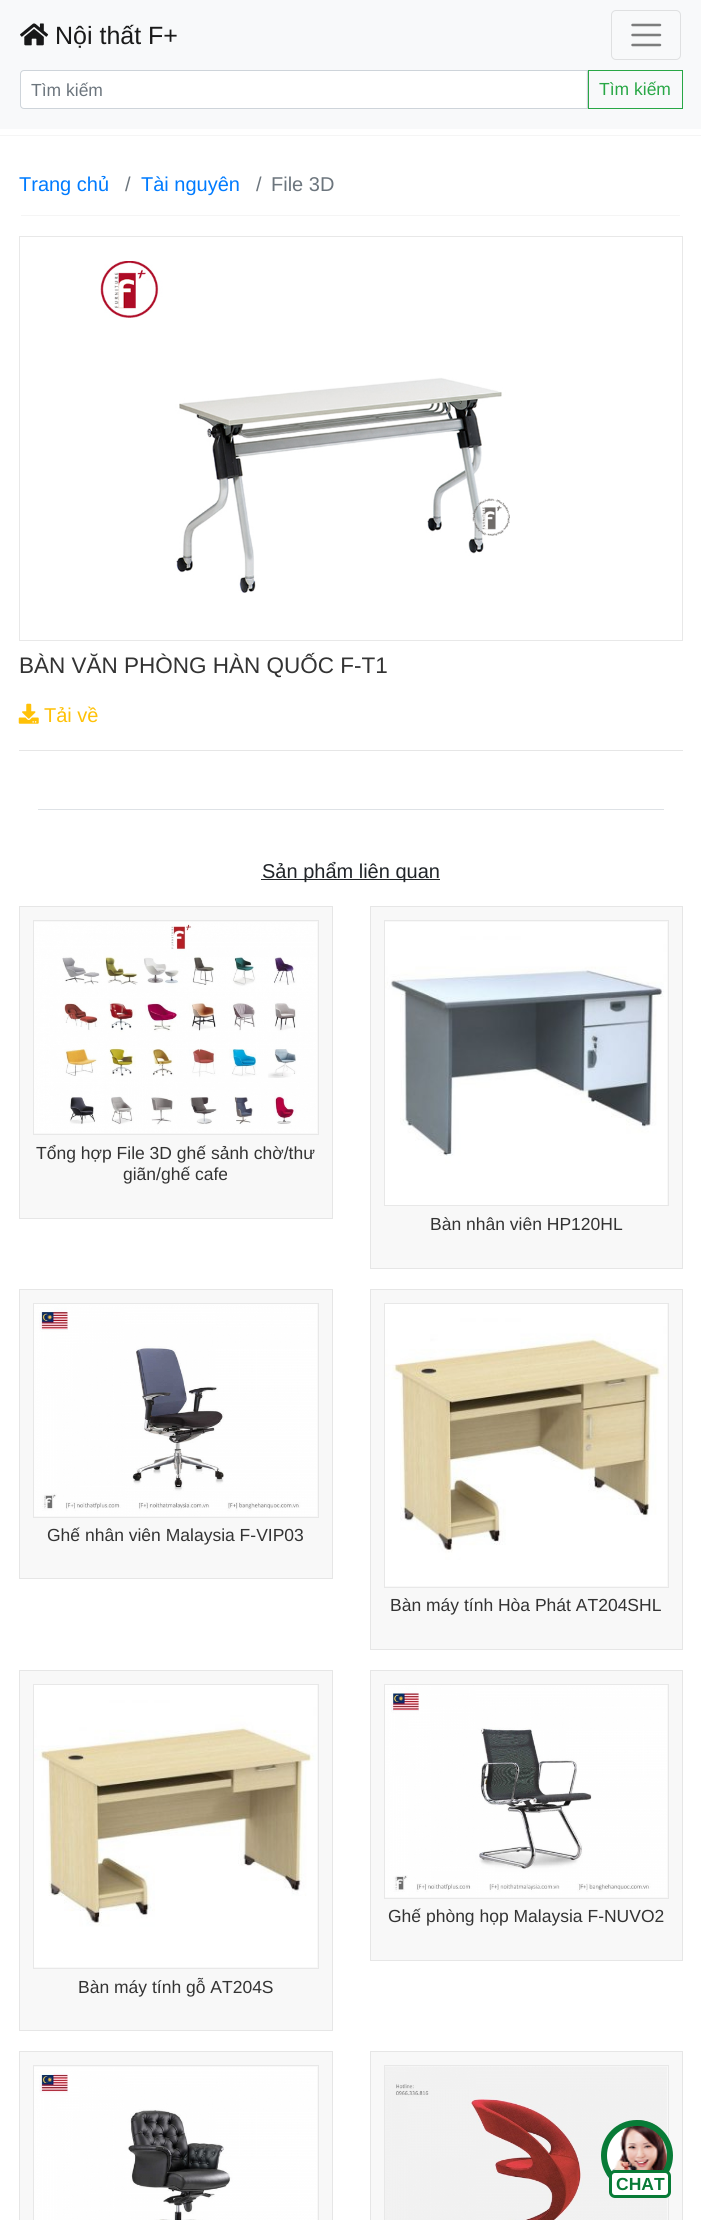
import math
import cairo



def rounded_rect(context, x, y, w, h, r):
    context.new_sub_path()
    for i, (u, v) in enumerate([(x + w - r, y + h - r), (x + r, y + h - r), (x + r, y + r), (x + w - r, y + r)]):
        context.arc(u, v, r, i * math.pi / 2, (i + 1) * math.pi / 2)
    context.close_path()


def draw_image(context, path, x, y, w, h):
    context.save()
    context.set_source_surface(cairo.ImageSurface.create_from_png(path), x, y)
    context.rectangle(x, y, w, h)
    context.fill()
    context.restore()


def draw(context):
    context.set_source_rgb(1, 1, 1)
    context.paint()
    context.set_source_rgb(248 / 255, 249 / 255, 250 / 255)
    context.rectangle(0, 0, 701, 129)
    context.fill()
    draw_image(context, "images/1.png", 20, 23, 29, 23)
    rounded_rect(context, 611.5, 10.5, 69, 49, 4.5)
    context.set_source_rgb(223 / 255, 224 / 255, 225 / 255)
    context.set_line_width(1)
    context.stroke()
    context.new_path()
    context.move_to(632.5, 25)
    context.line_to(660, 25)
    context.move_to(632.5, 35)
    context.line_to(660, 35)
    context.move_to(632.5, 45)
    context.line_to(660, 45)
    context.set_source_rgb(124 / 255, 125 / 255, 125 / 255)
    context.set_line_width(2.5)
    context.set_line_cap(cairo.LineCap.ROUND)
    context.stroke()
    context.set_source_rgb(1, 1, 1)
    context.new_path()
    context.move_to(23.5, 71)
    context.line_to(586, 71)
    context.line_to(586, 108)
    context.line_to(23.5, 108)
    context.curve_to(22, 108, 21, 107, 21, 105.5)
    context.line_to(21, 73.5)
    context.curve_to(21, 72, 22, 71, 23.5, 71)
    context.close_path()
    context.fill()
    context.new_path()
    context.move_to(24, 70.5)
    context.line_to(587.5, 70.5)
    context.line_to(587.5, 108.5)
    context.line_to(24, 108.5)
    context.curve_to(22, 108.5, 20.5, 107, 20.5, 105)
    context.line_to(20.5, 74)
    context.curve_to(20.5, 72, 22, 70.5, 24, 70.5)
    context.close_path()
    context.set_source_rgb(206 / 255, 212 / 255, 218 / 255)
    context.set_line_width(1)
    context.set_line_cap(cairo.LineCap.BUTT)
    context.stroke()
    context.rectangle(588.5, 70.5, 94, 38)
    context.set_source_rgb(40 / 255, 167 / 255, 69 / 255)
    context.stroke()
    context.set_source_rgb(245 / 255, 245 / 255, 245 / 255)
    context.rectangle(0, 135, 701, 1)
    context.fill()
    context.rectangle(21, 215, 659, 1)
    context.fill()
    context.rectangle(19.5, 236.5, 663, 404)
    context.set_source_rgb(232 / 255, 232 / 255, 232 / 255)
    context.stroke()
    draw_image(context, "images/2.png", 100, 261, 410, 332)
    draw_image(context, "images/3.png", 18, 703, 21, 21)
    context.set_source_rgb(230 / 255, 230 / 255, 230 / 255)
    context.rectangle(19, 750, 664, 1)
    context.fill()
    context.set_source_rgb(222 / 255, 226 / 255, 230 / 255)
    context.rectangle(38, 809, 626, 1)
    context.fill()
    context.set_source_rgb(33 / 255, 37 / 255, 41 / 255)
    context.rectangle(261, 879, 179, 1)
    context.fill()
    context.set_source_rgb(248 / 255, 248 / 255, 248 / 255)
    context.rectangle(19.5, 906.5, 313, 312)
    context.fill_preserve()
    context.set_source_rgb(230 / 255, 230 / 255, 230 / 255)
    context.stroke()
    context.rectangle(33.5, 920.5, 285, 214)
    context.set_source_rgb(232 / 255, 232 / 255, 232 / 255)
    context.stroke()
    draw_image(context, "images/4.png", 34, 922, 283, 211)
    context.set_source_rgb(248 / 255, 248 / 255, 248 / 255)
    context.rectangle(370.5, 906.5, 312, 362)
    context.fill_preserve()
    context.set_source_rgb(230 / 255, 230 / 255, 230 / 255)
    context.stroke()
    context.rectangle(384.5, 920.5, 284, 285)
    context.set_source_rgb(232 / 255, 232 / 255, 232 / 255)
    context.stroke()
    draw_image(context, "images/5.png", 385, 922, 282, 283)
    context.set_source_rgb(248 / 255, 248 / 255, 248 / 255)
    context.rectangle(19.5, 1289.5, 313, 289)
    context.fill_preserve()
    context.set_source_rgb(230 / 255, 230 / 255, 230 / 255)
    context.stroke()
    context.rectangle(33.5, 1303.5, 285, 214)
    context.set_source_rgb(232 / 255, 232 / 255, 232 / 255)
    context.stroke()
    draw_image(context, "images/6.png", 34, 1304, 283, 212)
    context.set_source_rgb(248 / 255, 248 / 255, 248 / 255)
    context.rectangle(370.5, 1289.5, 312, 360)
    context.fill_preserve()
    context.set_source_rgb(230 / 255, 230 / 255, 230 / 255)
    context.stroke()
    context.rectangle(384.5, 1303.5, 284, 284)
    context.set_source_rgb(232 / 255, 232 / 255, 232 / 255)
    context.stroke()
    draw_image(context, "images/7.png", 385, 1304, 282, 282)
    context.set_source_rgb(248 / 255, 248 / 255, 248 / 255)
    context.rectangle(370.5, 1670.5, 312, 290)
    context.fill_preserve()
    context.set_source_rgb(230 / 255, 230 / 255, 230 / 255)
    context.stroke()
    context.rectangle(384.5, 1684.5, 284, 214)
    context.set_source_rgb(232 / 255, 232 / 255, 232 / 255)
    context.stroke()
    draw_image(context, "images/8.png", 385, 1685, 282, 212)
    context.set_source_rgb(248 / 255, 248 / 255, 248 / 255)
    context.rectangle(19.5, 1670.5, 313, 360)
    context.fill_preserve()
    context.set_source_rgb(230 / 255, 230 / 255, 230 / 255)
    context.stroke()
    context.rectangle(33.5, 1684.5, 285, 284)
    context.set_source_rgb(232 / 255, 232 / 255, 232 / 255)
    context.stroke()
    draw_image(context, "images/9.png", 34, 1685, 283, 282)
    context.set_source_rgb(248 / 255, 248 / 255, 248 / 255)
    context.rectangle(19.5, 2051.5, 313, 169)
    context.fill_preserve()
    context.set_source_rgb(230 / 255, 230 / 255, 230 / 255)
    context.stroke()
    context.rectangle(33.5, 2065.5, 285, 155)
    context.set_source_rgb(232 / 255, 232 / 255, 232 / 255)
    context.stroke()
    draw_image(context, "images/10.png", 34, 2067, 283, 153)
    context.set_source_rgb(248 / 255, 248 / 255, 248 / 255)
    context.rectangle(370.5, 2051.5, 312, 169)
    context.fill_preserve()
    context.set_source_rgb(230 / 255, 230 / 255, 230 / 255)
    context.stroke()
    context.rectangle(384.5, 2065.5, 284, 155)
    context.set_source_rgb(232 / 255, 232 / 255, 232 / 255)
    context.stroke()
    draw_image(context, "images/11.png", 385, 2066, 282, 154)
    draw_image(context, "images/12.png", 601, 2120, 72, 58)
    rounded_rect(context, 604, 2123, 66, 65, 32.5)
    context.set_source_rgb(8 / 255, 123 / 255, 55 / 255)
    context.set_line_width(6)
    context.stroke()
    context.set_source_rgb(1, 1, 1)
    rounded_rect(context, 610.5, 2171.5, 59, 25, 4.5)
    context.fill_preserve()
    context.set_source_rgb(8 / 255, 123 / 255, 55 / 255)
    context.set_line_width(3)
    context.stroke()
    context.select_font_face("Liberation Sans")
    context.set_font_size(25)
    context.set_source_rgb(25 / 255, 25 / 255, 25 / 255)
    context.move_to(55, 44)
    context.show_text("Nội thất F+")
    context.set_font_size(17.5)
    context.set_source_rgb(108 / 255, 117 / 255, 125 / 255)
    context.move_to(31, 96)
    context.show_text("Tìm kiếm")
    context.set_source_rgb(40 / 255, 167 / 255, 69 / 255)
    context.move_to(599, 95)
    context.show_text("Tìm kiếm")
    context.set_font_size(20)
    context.set_source_rgb(0, 123 / 255, 1)
    context.move_to(19, 191)
    context.show_text("Trang chủ")
    context.set_source_rgb(108 / 255, 117 / 255, 125 / 255)
    context.move_to(125, 191)
    context.show_text("/")
    context.set_source_rgb(0, 123 / 255, 1)
    context.move_to(141, 191)
    context.show_text("Tài nguyên")
    context.set_source_rgb(108 / 255, 117 / 255, 125 / 255)
    context.move_to(256, 191)
    context.show_text("/")
    context.move_to(271, 191)
    context.show_text("File 3D")
    context.set_font_size(22.5)
    context.set_source_rgb(51 / 255, 51 / 255, 51 / 255)
    context.move_to(19, 673)
    context.show_text("BÀN VĂN PHÒNG HÀN QUỐC F-T1")
    context.set_font_size(20)
    context.set_source_rgb(1, 193 / 255, 7 / 255)
    context.move_to(44, 722)
    context.show_text("Tải về")
    context.set_source_rgb(33 / 255, 37 / 255, 41 / 255)
    context.move_to(262, 878)
    context.show_text("Sản phẩm liên quan")
    context.set_font_size(17.5)
    context.set_source_rgb(51 / 255, 51 / 255, 51 / 255)
    context.move_to(36, 1159)
    context.show_text("Tổng hợp File 3D ghế sảnh chờ/thư")
    context.move_to(123, 1180)
    context.show_text("giãn/ghế cafe")
    context.move_to(430, 1230)
    context.show_text("Bàn nhân viên HP120HL")
    context.move_to(47, 1541)
    context.show_text("Ghế nhân viên Malaysia F-VIP03")
    context.move_to(390, 1611)
    context.show_text("Bàn máy tính Hòa Phát AT204SHL")
    context.move_to(388, 1922)
    context.show_text("Ghế phòng họp Malaysia F-NUVO2")
    context.move_to(78, 1993)
    context.show_text("Bàn máy tính gỗ AT204S")
    context.select_font_face("Liberation Sans", cairo.FontSlant.NORMAL, cairo.FontWeight.BOLD)
    context.set_source_rgb(8 / 255, 123 / 255, 55 / 255)
    context.move_to(616, 2190)
    context.show_text("CHAT")


surface = cairo.ImageSurface(cairo.Format.RGB24, 701, 2220)
context = cairo.Context(surface)
options = cairo.FontOptions()
options.set_hint_metrics(cairo.HintMetrics.OFF)
options.set_hint_style(cairo.HintStyle.NONE)
context.set_font_options(options)
context.set_miter_limit(4)
draw(context)
surface.write_to_png("out.png")
